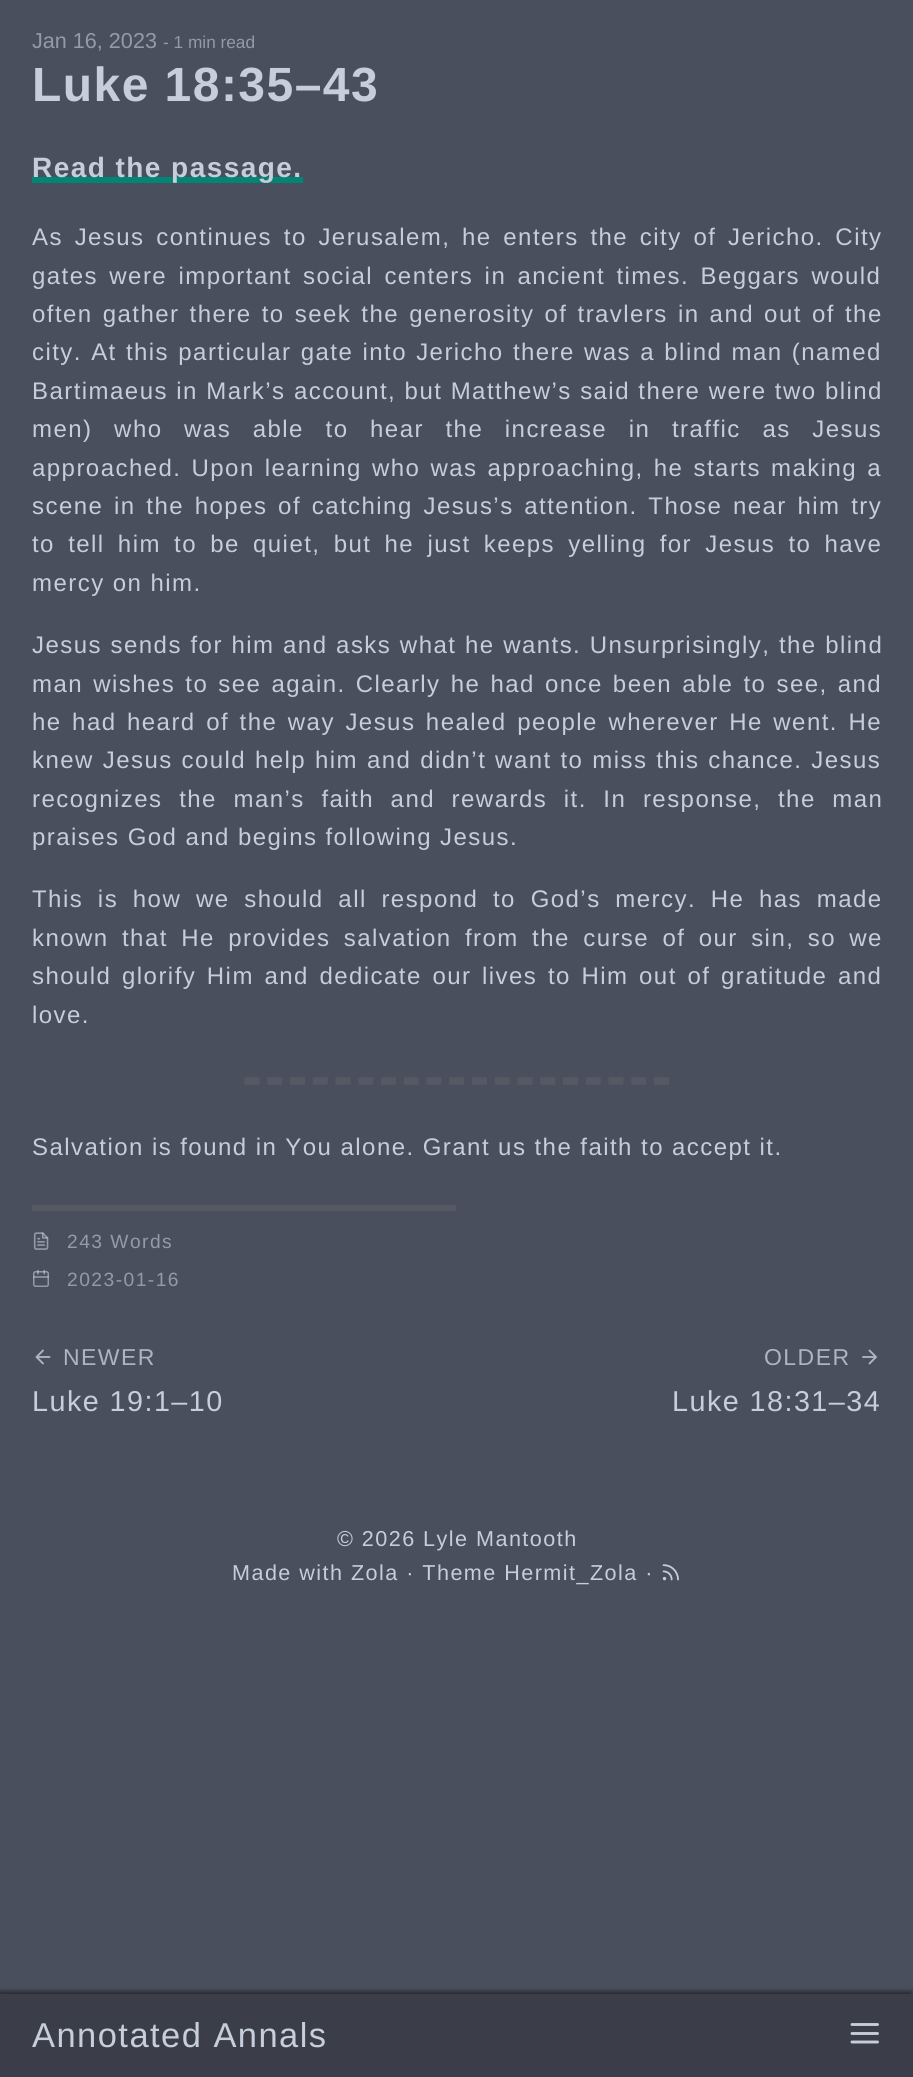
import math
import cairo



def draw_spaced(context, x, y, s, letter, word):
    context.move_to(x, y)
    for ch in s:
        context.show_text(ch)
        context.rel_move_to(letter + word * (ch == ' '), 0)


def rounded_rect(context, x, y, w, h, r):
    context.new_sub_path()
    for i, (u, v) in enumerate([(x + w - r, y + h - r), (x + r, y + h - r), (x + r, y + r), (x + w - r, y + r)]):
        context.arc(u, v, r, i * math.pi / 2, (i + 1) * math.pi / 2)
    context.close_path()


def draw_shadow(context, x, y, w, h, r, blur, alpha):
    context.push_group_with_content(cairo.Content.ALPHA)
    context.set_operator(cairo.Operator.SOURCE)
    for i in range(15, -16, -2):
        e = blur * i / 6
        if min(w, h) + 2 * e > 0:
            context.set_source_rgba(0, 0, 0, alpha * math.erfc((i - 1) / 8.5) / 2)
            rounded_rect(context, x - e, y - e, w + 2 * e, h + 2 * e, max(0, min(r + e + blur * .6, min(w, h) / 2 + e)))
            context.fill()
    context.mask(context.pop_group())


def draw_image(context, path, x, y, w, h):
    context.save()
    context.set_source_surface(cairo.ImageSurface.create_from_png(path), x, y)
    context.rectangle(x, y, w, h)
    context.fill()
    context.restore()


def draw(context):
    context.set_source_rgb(73 / 255, 79 / 255, 92 / 255)
    context.paint()
    context.set_source_rgb(1 / 255, 133 / 255, 116 / 255)
    context.rectangle(32, 177, 271, 6)
    context.fill()
    context.new_path()
    context.move_to(244.5, 1081)
    context.line_to(669, 1081)
    context.set_source_rgb(84 / 255, 89 / 255, 99 / 255)
    context.set_line_width(7.5)
    context.set_dash([15, 7.75])
    context.stroke()
    context.rectangle(32, 1205, 424, 6)
    context.fill()
    draw_image(context, "images/1.png", 33, 1232, 16, 18)
    draw_image(context, "images/2.png", 33, 1269, 16, 18)
    context.new_path()
    context.move_to(49.5, 1357)
    context.line_to(36.5, 1357)
    context.move_to(43, 1363.5)
    context.line_to(36.5, 1357)
    context.line_to(43, 1350.5)
    context.set_source_rgb(173 / 255, 180 / 255, 194 / 255)
    context.set_line_width(1.9)
    context.set_line_cap(cairo.LineCap.ROUND)
    context.set_line_join(cairo.LineJoin.ROUND)
    context.set_dash([])
    context.stroke()
    context.new_path()
    context.move_to(863, 1357)
    context.line_to(876, 1357)
    context.move_to(869.5, 1350.5)
    context.line_to(876, 1357)
    context.line_to(869.5, 1363.5)
    context.stroke()
    draw_image(context, "images/3.png", 662, 1564, 17, 17)
    context.set_source_rgb(0, 0, 0)
    draw_shadow(context, -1, 1991, 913, 84, 0, 2, 0.45)
    context.set_source_rgb(59 / 255, 62 / 255, 72 / 255)
    context.rectangle(0, 1994, 913, 83)
    context.fill()
    context.new_path()
    context.move_to(852, 2033.5)
    context.line_to(877.5, 2033.5)
    context.move_to(852, 2024.5)
    context.line_to(877.5, 2024.5)
    context.move_to(852, 2042)
    context.line_to(877.5, 2042)
    context.set_source_rgb(198 / 255, 205 / 255, 219 / 255)
    context.set_line_width(2.9)
    context.stroke()
    context.select_font_face("Liberation Sans")
    context.set_font_size(21.6)
    context.set_source_rgb(148 / 255, 155 / 255, 168 / 255)
    context.move_to(32, 48)
    context.show_text("Jan 16, 2023")
    context.set_font_size(17.25)
    context.move_to(163, 48)
    context.show_text("- 1 min read")
    context.select_font_face("Liberation Sans", cairo.FontSlant.NORMAL, cairo.FontWeight.BOLD)
    context.set_font_size(48)
    context.set_source_rgb(198 / 255, 205 / 255, 219 / 255)
    draw_spaced(context, 32, 101, "Luke 18:35–43", 1.45, 0)
    context.set_font_size(28)
    draw_spaced(context, 32, 177, "Read the passage.", 1.45, 0)
    context.select_font_face("Liberation Sans")
    context.set_font_size(24)
    draw_spaced(context, 32, 245, "As Jesus continues to Jerusalem, he enters the city of Jericho. City", 1.45, 3.6)
    draw_spaced(context, 32, 284, "gates were important social centers in ancient times. Beggars would", 1.45, 3.25)
    draw_spaced(context, 32, 322, "often gather there to seek the generosity of travlers in and out of the", 1.45, 2)
    draw_spaced(context, 32, 360, "city. At this particular gate into Jericho there was a blind man (named", 1.45, 1.1)
    draw_spaced(context, 32, 399, "Bartimaeus in Mark’s account, but Matthew’s said there were two blind", 1.45, 0.25)
    draw_spaced(context, 32, 437, "men) who was able to hear the increase in traffic as Jesus", 1.45, 13.5)
    draw_spaced(context, 32, 476, "approached. Upon learning who was approaching, he starts making a", 1.45, 2)
    draw_spaced(context, 32, 514, "scene in the hopes of catching Jesus’s attention. Those near him try", 1.45, 2.6)
    draw_spaced(context, 32, 552, "to tell him to be quiet, but he just keeps yelling for Jesus to have", 1.45, 5.1)
    draw_spaced(context, 32, 591, "mercy on him.", 1.45, 0)
    draw_spaced(context, 32, 653, "Jesus sends for him and asks what he wants. Unsurprisingly, the blind", 1.45, 0.5)
    draw_spaced(context, 32, 692, "man wishes to see again. Clearly he had once been able to see, and", 1.45, 2)
    draw_spaced(context, 32, 730, "he had heard of the way Jesus healed people wherever He went. He", 1.45, 2.4)
    draw_spaced(context, 32, 768, "knew Jesus could help him and didn’t want to miss this chance. Jesus", 1.45, 0.75)
    draw_spaced(context, 32, 807, "recognizes the man’s faith and rewards it. In response, the man", 1.45, 8.5)
    draw_spaced(context, 32, 845, "praises God and begins following Jesus.", 1.45, 0)
    draw_spaced(context, 32, 907, "This is how we should all respond to God’s mercy. He has made", 1.45, 6.6)
    draw_spaced(context, 32, 946, "known that He provides salvation from the curse of our sin, so we", 1.45, 5.25)
    draw_spaced(context, 32, 984, "should glorify Him and dedicate our lives to Him out of gratitude and", 1.45, 2.5)
    draw_spaced(context, 32, 1023, "love.", 1.45, 0)
    draw_spaced(context, 32, 1155, "Salvation is found in You alone. Grant us the faith to accept it.", 1.45, 0)
    context.set_font_size(19.25)
    context.set_source_rgb(148 / 255, 155 / 255, 168 / 255)
    draw_spaced(context, 67, 1248, "243 Words", 1.45, 0)
    draw_spaced(context, 67, 1286, "2023-01-16", 1.45, 0)
    context.set_font_size(23)
    context.set_source_rgb(173 / 255, 180 / 255, 194 / 255)
    draw_spaced(context, 63, 1365, "NEWER", 1.45, 0)
    context.set_font_size(28.75)
    context.set_source_rgb(198 / 255, 205 / 255, 219 / 255)
    draw_spaced(context, 32, 1411, "Luke 19:1–10", 1.45, 0)
    context.set_font_size(23)
    context.set_source_rgb(173 / 255, 180 / 255, 194 / 255)
    draw_spaced(context, 764, 1365, "OLDER", 1.45, 0)
    context.set_font_size(28.75)
    context.set_source_rgb(198 / 255, 205 / 255, 219 / 255)
    draw_spaced(context, 672, 1411, "Luke 18:31–34", 1.45, 0)
    context.set_font_size(21.6)
    draw_spaced(context, 337, 1546, "© 2026 Lyle Mantooth", 1.45, 0)
    draw_spaced(context, 232, 1580, "Made with Zola · Theme Hermit_Zola ·", 1.45, 0)
    context.set_font_size(34.5)
    draw_spaced(context, 32, 2047, "Annotated Annals", 1.45, 0)


surface = cairo.ImageSurface(cairo.Format.RGB24, 913, 2077)
context = cairo.Context(surface)
options = cairo.FontOptions()
options.set_hint_metrics(cairo.HintMetrics.OFF)
options.set_hint_style(cairo.HintStyle.NONE)
context.set_font_options(options)
context.set_miter_limit(4)
draw(context)
surface.write_to_png("out.png")
